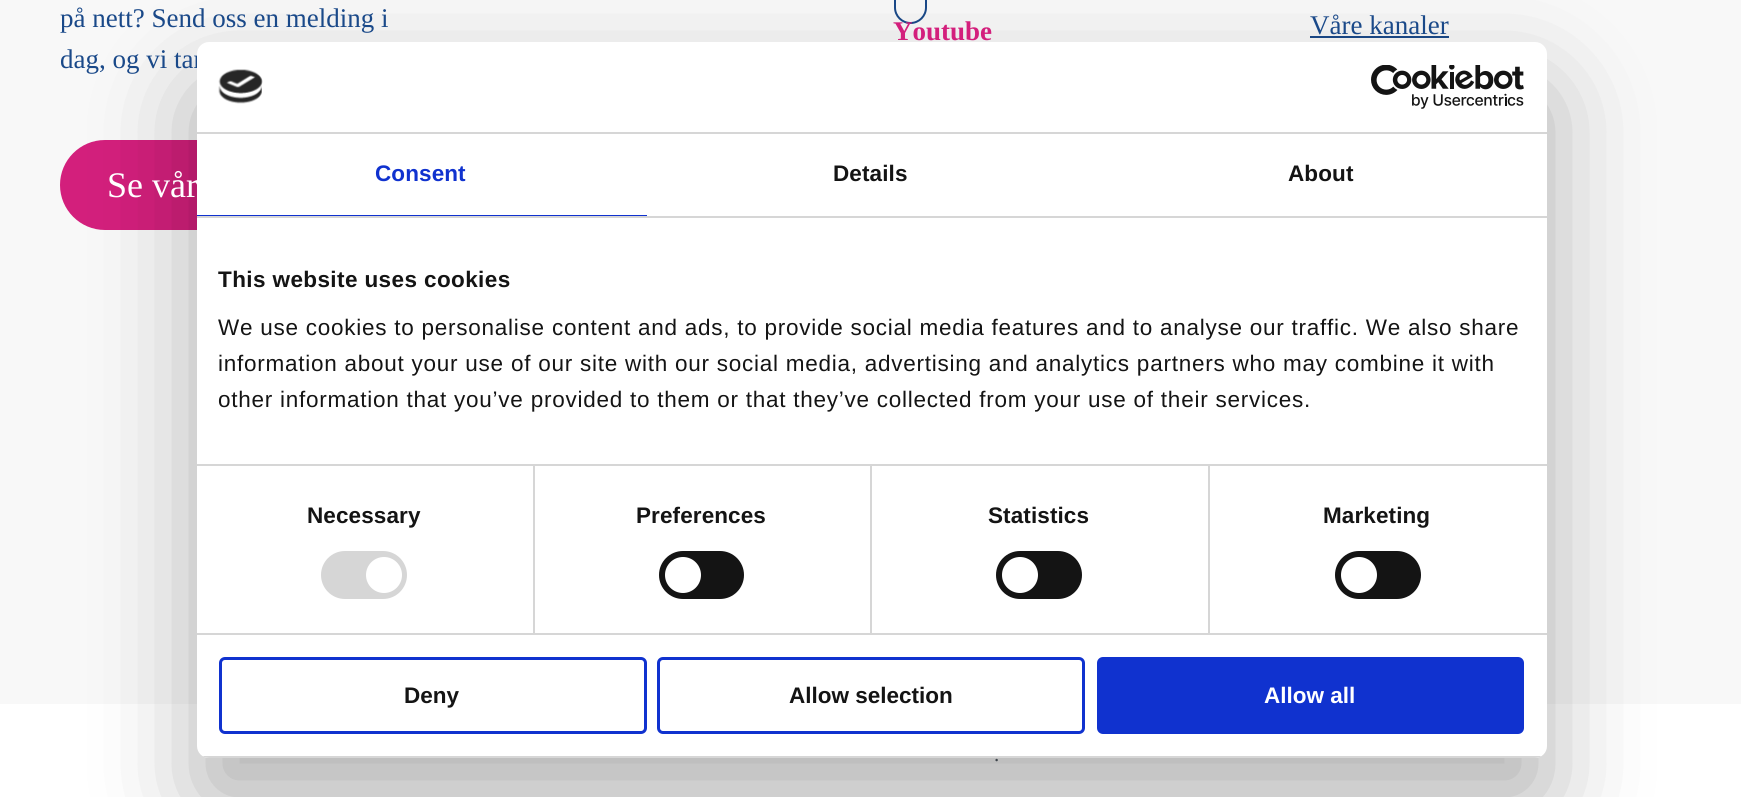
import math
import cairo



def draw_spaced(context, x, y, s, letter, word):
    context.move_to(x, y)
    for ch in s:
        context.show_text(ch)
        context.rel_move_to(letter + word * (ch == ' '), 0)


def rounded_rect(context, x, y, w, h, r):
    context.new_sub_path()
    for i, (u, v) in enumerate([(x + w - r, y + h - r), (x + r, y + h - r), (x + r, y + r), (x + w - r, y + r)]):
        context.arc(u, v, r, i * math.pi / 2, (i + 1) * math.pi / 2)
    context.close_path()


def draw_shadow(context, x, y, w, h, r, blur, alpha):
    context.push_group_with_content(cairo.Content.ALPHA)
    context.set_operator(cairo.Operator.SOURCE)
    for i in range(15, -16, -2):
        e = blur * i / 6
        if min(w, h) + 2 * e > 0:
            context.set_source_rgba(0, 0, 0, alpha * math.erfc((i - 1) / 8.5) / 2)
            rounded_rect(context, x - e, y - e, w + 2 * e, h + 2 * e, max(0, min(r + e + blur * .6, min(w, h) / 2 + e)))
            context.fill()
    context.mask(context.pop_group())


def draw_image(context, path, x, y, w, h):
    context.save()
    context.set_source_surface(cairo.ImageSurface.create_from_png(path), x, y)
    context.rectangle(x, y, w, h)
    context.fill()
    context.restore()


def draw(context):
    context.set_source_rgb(248 / 255, 248 / 255, 248 / 255)
    context.paint()
    context.set_source_rgb(211 / 255, 31 / 255, 124 / 255)
    rounded_rect(context, 61, 141, 270, 88, 44)
    context.fill_preserve()
    context.stroke()
    rounded_rect(context, 895, -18, 31, 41, 15.5)
    context.set_source_rgb(26 / 255, 73 / 255, 137 / 255)
    context.stroke()
    context.rectangle(1310, 36, 139, 2)
    context.fill()
    context.set_source_rgb(1, 1, 1)
    context.rectangle(0, 704, 1741, 93)
    context.fill()
    context.set_source_rgb(0, 0, 0)
    draw_shadow(context, 197, 90, 1350, 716, 12, 51, 0.3)
    context.select_font_face("Liberation Serif")
    context.set_font_size(27)
    context.set_source_rgb(26 / 255, 73 / 255, 137 / 255)
    context.move_to(60, 27)
    context.show_text("på nett? Send oss en melding i")
    context.move_to(60, 68)
    context.show_text("dag, og vi tar")
    context.set_font_size(36)
    context.set_source_rgb(1, 1, 1)
    context.move_to(107, 197)
    context.show_text("Se vår")
    context.select_font_face("Liberation Serif", cairo.FontSlant.NORMAL, cairo.FontWeight.BOLD)
    context.set_font_size(27)
    context.set_source_rgb(211 / 255, 31 / 255, 124 / 255)
    context.move_to(893, 40)
    context.show_text("Youtube")
    context.select_font_face("Liberation Serif")
    context.set_source_rgb(26 / 255, 73 / 255, 137 / 255)
    context.move_to(1310, 34)
    context.show_text("Våre kanaler")
    context.set_font_size(21)
    context.set_source_rgb(60 / 255, 67 / 255, 74 / 255)
    context.move_to(994, 761)
    context.show_text(".")
    context.set_source_rgb(1, 1, 1)
    rounded_rect(context, 197, 42, 1350, 716, 12)
    context.fill()
    context.set_source_rgb(214 / 255, 214 / 255, 214 / 255)
    context.rectangle(197, 132, 1350, 2)
    context.fill()
    draw_image(context, "images/1.png", 218, 69, 45, 35)
    draw_image(context, "images/2.png", 1371, 65, 153, 44)
    context.rectangle(197, 216, 1350, 2)
    context.fill()
    context.set_source_rgb(16 / 255, 50 / 255, 207 / 255)
    context.rectangle(197, 215, 450, 1)
    context.fill()
    context.select_font_face("Liberation Sans", cairo.FontSlant.NORMAL, cairo.FontWeight.BOLD)
    context.set_font_size(22.5)
    draw_spaced(context, 375, 181, "Consent", 0.1, 0)
    context.set_source_rgb(20 / 255, 20 / 255, 20 / 255)
    draw_spaced(context, 833, 181, "Details", 0.1, 0)
    draw_spaced(context, 1288, 181, "About", 0.1, 0)
    draw_spaced(context, 218, 287, "This website uses cookies", 0.4, 0)
    context.select_font_face("Liberation Sans")
    draw_spaced(context, 218, 335, "We use cookies to personalise content and ads, to provide social media features and to analyse our traffic. We also share", 0.75, 0)
    draw_spaced(context, 218, 371, "information about your use of our site with our social media, advertising and analytics partners who may combine it with", 0.75, 0)
    draw_spaced(context, 218, 407, "other information that you’ve provided to them or that they’ve collected from your use of their services.", 0.75, 0)
    context.set_source_rgb(214 / 255, 214 / 255, 214 / 255)
    context.rectangle(197, 633, 1350, 2)
    context.fill()
    context.rectangle(533, 465, 2, 168)
    context.fill()
    context.select_font_face("Liberation Sans", cairo.FontSlant.NORMAL, cairo.FontWeight.BOLD)
    context.set_source_rgb(20 / 255, 20 / 255, 20 / 255)
    draw_spaced(context, 307, 523, "Necessary", 0.1, 0)
    context.set_source_rgb(214 / 255, 214 / 255, 214 / 255)
    rounded_rect(context, 321, 551, 86, 48, 24)
    context.fill()
    context.set_source_rgb(1, 1, 1)
    context.arc(384, 575, 18, 0, 2 * math.pi)
    context.fill()
    context.set_source_rgb(214 / 255, 214 / 255, 214 / 255)
    context.rectangle(870, 465, 2, 168)
    context.fill()
    context.set_source_rgb(20 / 255, 20 / 255, 20 / 255)
    draw_spaced(context, 636, 523, "Preferences", 0.1, 0)
    rounded_rect(context, 659, 551, 85, 48, 24)
    context.fill()
    context.set_source_rgb(1, 1, 1)
    context.arc(683, 575, 18, 0, 2 * math.pi)
    context.fill()
    context.set_source_rgb(214 / 255, 214 / 255, 214 / 255)
    context.rectangle(1208, 465, 2, 168)
    context.fill()
    context.rectangle(197, 464, 1350, 2)
    context.fill()
    context.set_source_rgb(20 / 255, 20 / 255, 20 / 255)
    draw_spaced(context, 988, 523, "Statistics", 0.1, 0)
    rounded_rect(context, 996, 551, 86, 48, 24)
    context.fill()
    context.set_source_rgb(1, 1, 1)
    context.arc(1020, 575, 18, 0, 2 * math.pi)
    context.fill()
    context.set_source_rgb(20 / 255, 20 / 255, 20 / 255)
    draw_spaced(context, 1323, 523, "Marketing", 0.1, 0)
    rounded_rect(context, 1335, 551, 86, 48, 24)
    context.fill()
    context.set_source_rgb(1, 1, 1)
    context.arc(1359, 575, 18, 0, 2 * math.pi)
    context.fill()
    context.save()
    rounded_rect(context, 197, 42, 1350, 716, 12)
    context.clip()
    context.set_source_rgb(214 / 255, 214 / 255, 214 / 255)
    context.rectangle(197, 756, 1350, 2)
    context.fill()
    context.restore()
    rounded_rect(context, 220.5, 658.5, 425, 74, 4.5)
    context.set_source_rgb(16 / 255, 50 / 255, 207 / 255)
    context.set_line_width(3)
    context.stroke()
    context.set_source_rgb(20 / 255, 20 / 255, 20 / 255)
    context.move_to(404, 703)
    context.show_text("Deny")
    rounded_rect(context, 658.5, 658.5, 425, 74, 4.5)
    context.set_source_rgb(16 / 255, 50 / 255, 207 / 255)
    context.stroke()
    context.set_source_rgb(20 / 255, 20 / 255, 20 / 255)
    context.move_to(789, 703)
    context.show_text("Allow selection")
    context.set_source_rgb(16 / 255, 50 / 255, 207 / 255)
    rounded_rect(context, 1098.5, 658.5, 424, 74, 4.5)
    context.fill_preserve()
    context.stroke()
    context.set_source_rgb(1, 1, 1)
    context.move_to(1264, 703)
    context.show_text("Allow all")


surface = cairo.ImageSurface(cairo.Format.RGB24, 1741, 797)
context = cairo.Context(surface)
options = cairo.FontOptions()
options.set_hint_metrics(cairo.HintMetrics.OFF)
options.set_hint_style(cairo.HintStyle.NONE)
context.set_font_options(options)
context.set_miter_limit(4)
draw(context)
surface.write_to_png("out.png")
